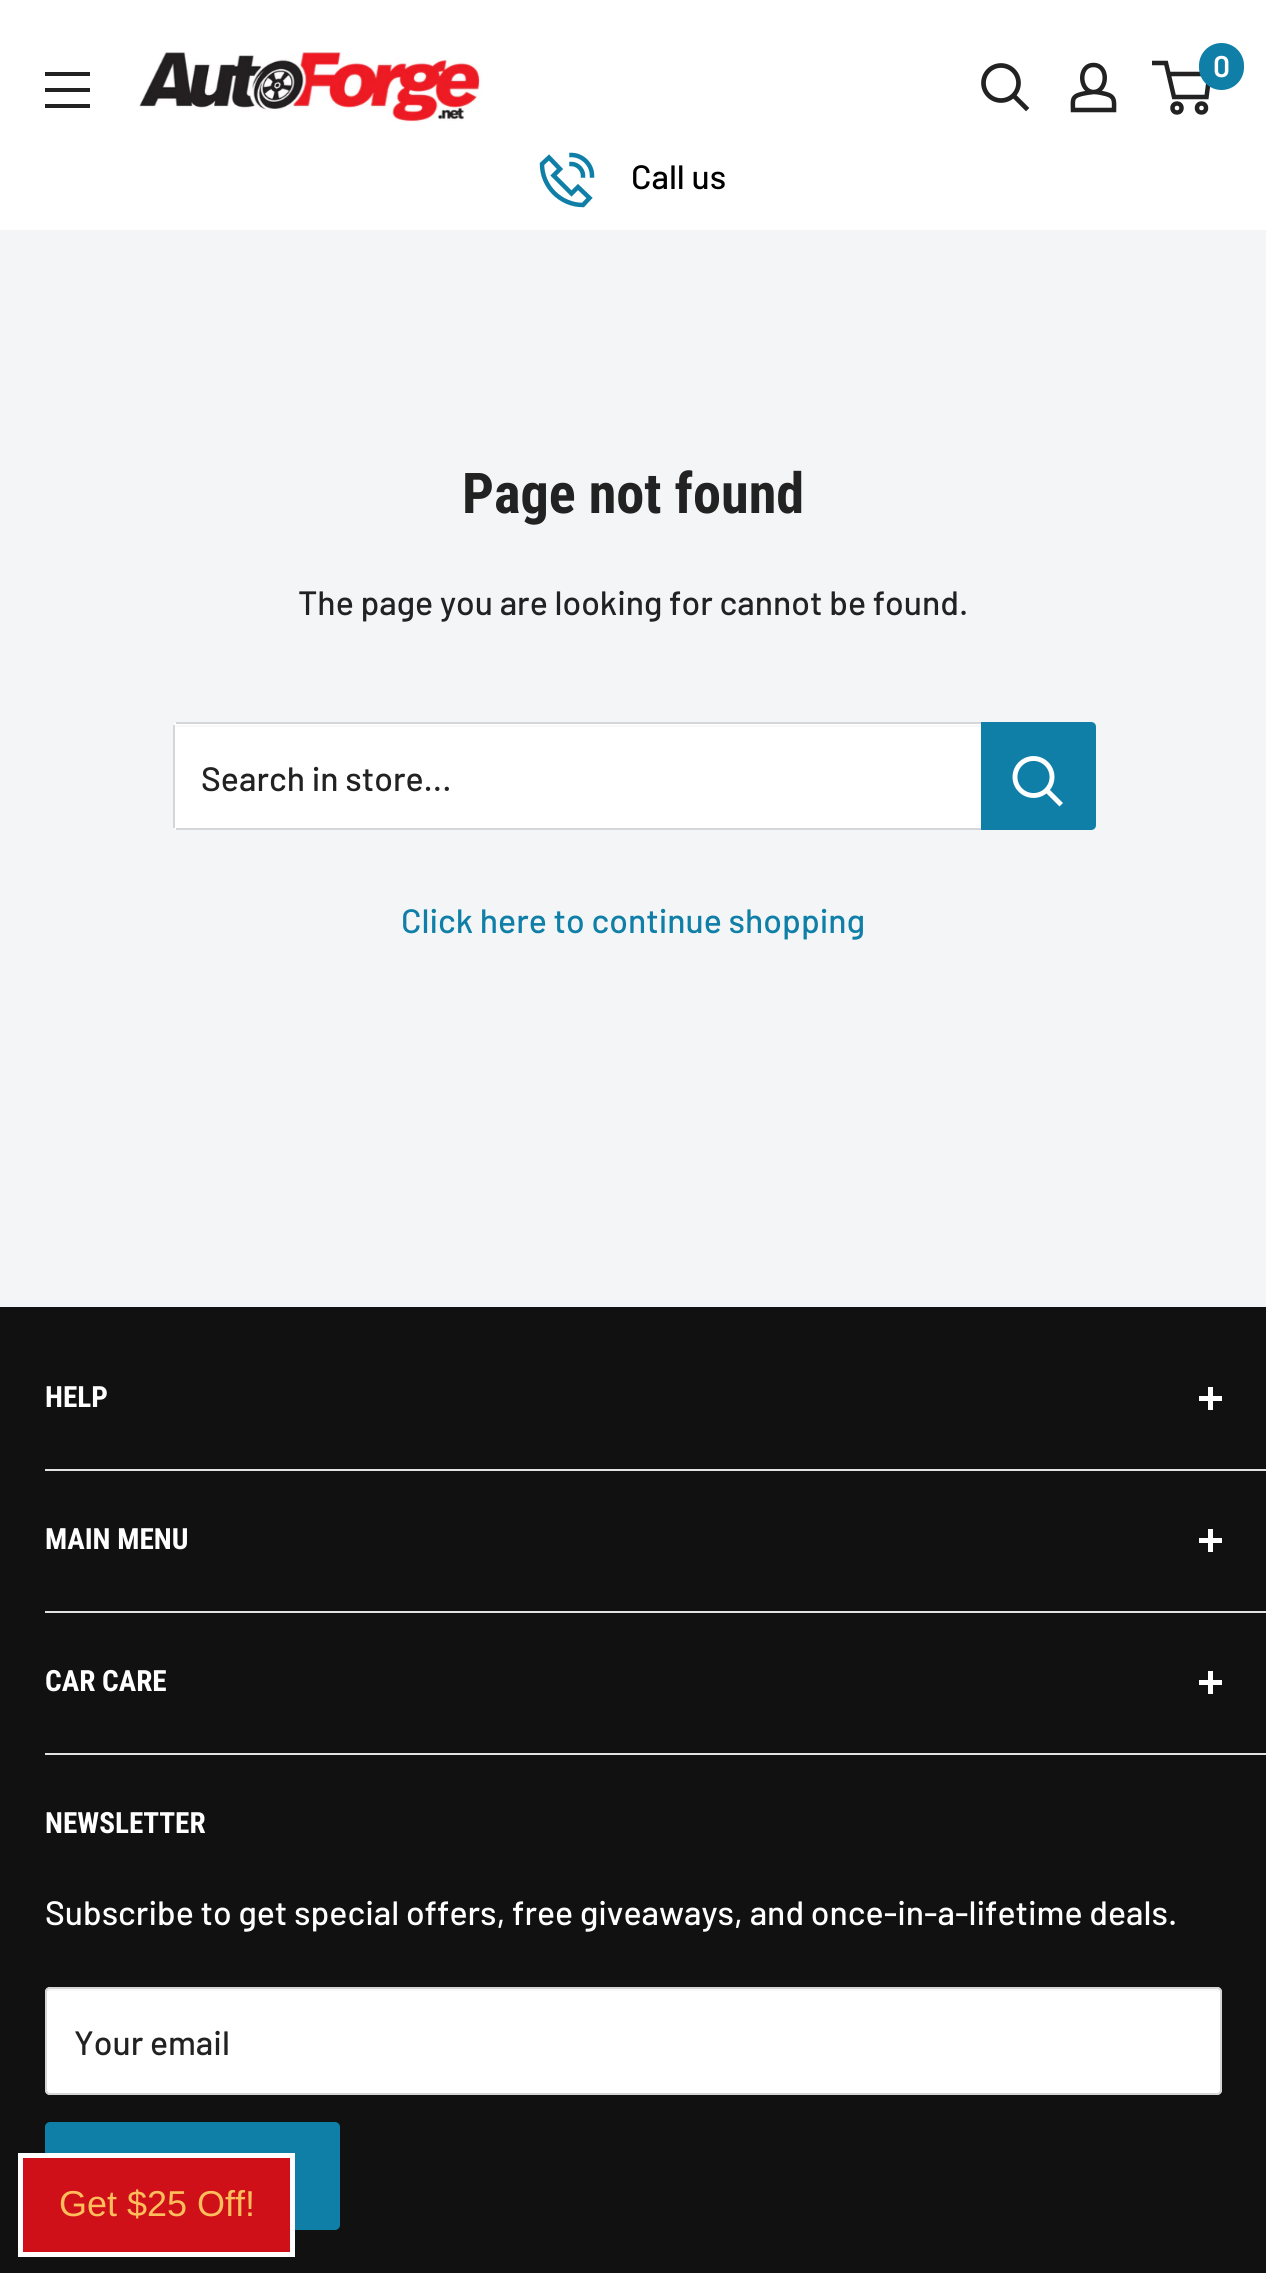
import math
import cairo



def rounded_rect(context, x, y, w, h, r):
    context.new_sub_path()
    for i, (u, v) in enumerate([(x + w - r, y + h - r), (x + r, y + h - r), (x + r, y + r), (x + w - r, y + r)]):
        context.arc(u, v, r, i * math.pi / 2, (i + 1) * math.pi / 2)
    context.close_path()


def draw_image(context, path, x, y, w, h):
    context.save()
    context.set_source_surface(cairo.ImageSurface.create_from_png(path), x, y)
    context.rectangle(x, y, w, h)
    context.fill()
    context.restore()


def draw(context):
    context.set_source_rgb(243 / 255, 245 / 255, 246 / 255)
    context.paint()
    context.set_source_rgb(1, 1, 1)
    context.rectangle(0, 0, 1266, 230)
    context.fill()
    draw_image(context, "images/1.png", 138, 52, 346, 70)
    context.new_path()
    context.move_to(1026, 108)
    context.line_to(1014, 96)
    context.set_source_rgb(34 / 255, 34 / 255, 34 / 255)
    context.set_line_width(4.7)
    context.set_line_cap(cairo.LineCap.SQUARE)
    context.stroke()
    context.arc(1001, 83, 17.5, 0, 2 * math.pi)
    context.set_line_cap(cairo.LineCap.BUTT)
    context.stroke()
    context.new_path()
    context.move_to(1093.5, 92)
    context.curve_to(1097.5, 92, 1102, 93, 1106, 94)
    context.curve_to(1115.5, 96.5, 1114, 102, 1114, 110)
    context.line_to(1073, 110)
    context.curve_to(1073, 101, 1071, 96.5, 1081.5, 94)
    context.curve_to(1085.5, 93, 1089.5, 92.5, 1093.5, 92)
    context.close_path()
    context.move_to(1093.5, 92)
    context.curve_to(1079.5, 92, 1077.5, 65, 1093.5, 65)
    context.curve_to(1109.5, 65, 1107.5, 92, 1093.5, 92)
    context.close_path()
    context.set_line_width(4.5)
    context.stroke()
    context.arc(1177, 108, 4.5, 0, 2 * math.pi)
    context.stroke()
    context.arc(1201.5, 108, 4.5, 0, 2 * math.pi)
    context.stroke()
    context.new_path()
    context.move_to(1168.5, 74)
    context.line_to(1209.5, 74)
    context.line_to(1206.5, 97)
    context.line_to(1174, 97)
    context.line_to(1166, 63)
    context.line_to(1152, 63)
    context.stroke()
    context.set_source_rgb(16 / 255, 127 / 255, 168 / 255)
    rounded_rect(context, 1199, 43, 45, 47, 22.5)
    context.fill()
    context.set_source_rgb(34 / 255, 34 / 255, 34 / 255)
    context.set_fill_rule(cairo.FillRule.EVEN_ODD)
    context.new_path()
    context.move_to(45, 104)
    context.line_to(90, 104)
    context.line_to(90, 108)
    context.line_to(45, 108)
    context.close_path()
    context.move_to(45, 72)
    context.line_to(90, 72)
    context.line_to(90, 76)
    context.line_to(45, 76)
    context.close_path()
    context.move_to(45, 88)
    context.line_to(90, 88)
    context.line_to(90, 92)
    context.line_to(45, 92)
    context.close_path()
    context.fill()
    context.new_path()
    context.move_to(578, 187)
    context.line_to(571.5, 193.5)
    context.line_to(553.5, 175.5)
    context.line_to(560, 169)
    context.line_to(549, 157.5)
    context.line_to(542, 164)
    context.curve_to(542, 186.5, 560.5, 205, 583, 205)
    context.line_to(589.5, 198)
    context.close_path()
    context.move_to(571.5, 155)
    context.curve_to(582.5, 155, 592, 164.5, 592, 175.5)
    context.move_to(571.5, 164)
    context.curve_to(577.5, 164, 583, 169.5, 583, 175.5)
    context.set_source_rgb(16 / 255, 127 / 255, 168 / 255)
    context.set_line_cap(cairo.LineCap.SQUARE)
    context.stroke()
    context.set_source_rgb(1, 1, 1)
    context.new_path()
    context.move_to(178, 722)
    context.line_to(981, 722)
    context.line_to(981, 830)
    context.line_to(178, 830)
    context.curve_to(175, 830, 173, 828, 173, 825)
    context.line_to(173, 727)
    context.curve_to(173, 724, 175, 722, 178, 722)
    context.close_path()
    context.fill()
    context.set_source_rgb(248 / 255, 248 / 255, 248 / 255)
    context.set_fill_rule(cairo.FillRule.WINDING)
    context.new_path()
    context.move_to(178, 727)
    context.line_to(981, 727)
    context.line_to(981, 725)
    context.line_to(178, 725)
    context.line_to(176, 726)
    context.line_to(176, 729)
    context.curve_to(176, 728, 177, 727, 178, 727)
    context.close_path()
    context.fill()
    context.set_source_rgb(212 / 255, 214 / 255, 216 / 255)
    context.rectangle(176, 722, 805, 2)
    context.fill()
    context.rectangle(176, 828, 805, 2)
    context.fill()
    context.rectangle(173, 725, 2, 103)
    context.fill()
    context.set_source_rgb(16 / 255, 127 / 255, 168 / 255)
    context.new_path()
    context.move_to(981, 722)
    context.line_to(1091, 722)
    context.curve_to(1094, 722, 1096, 724, 1096, 727)
    context.line_to(1096, 825)
    context.curve_to(1096, 828, 1094, 830, 1091, 830)
    context.line_to(981, 830)
    context.close_path()
    context.fill()
    context.new_path()
    context.move_to(1059.5, 803)
    context.line_to(1047, 790.5)
    context.set_source_rgb(1, 1, 1)
    context.set_line_width(4.9)
    context.stroke()
    context.arc(1033.5, 777, 18.5, 0, 2 * math.pi)
    context.set_line_cap(cairo.LineCap.BUTT)
    context.stroke()
    context.set_source_rgb(17 / 255, 17 / 255, 17 / 255)
    context.rectangle(0, 1307, 1266, 966)
    context.fill()
    context.set_source_rgb(225 / 255, 227 / 255, 228 / 255)
    context.rectangle(45, 1469, 1221, 2)
    context.fill()
    context.set_source_rgb(1, 1, 1)
    context.rectangle(1208, 1387, 5, 23)
    context.fill()
    context.rectangle(1199, 1396, 23, 5)
    context.fill()
    context.set_source_rgb(225 / 255, 227 / 255, 228 / 255)
    context.rectangle(45, 1611, 1221, 2)
    context.fill()
    context.set_source_rgb(1, 1, 1)
    context.rectangle(1208, 1529, 5, 23)
    context.fill()
    context.rectangle(1199, 1538, 23, 5)
    context.fill()
    context.set_source_rgb(225 / 255, 227 / 255, 228 / 255)
    context.rectangle(45, 1753, 1221, 2)
    context.fill()
    context.set_source_rgb(1, 1, 1)
    context.rectangle(1208, 1671, 5, 23)
    context.fill()
    context.rectangle(1199, 1680, 23, 5)
    context.fill()
    rounded_rect(context, 45, 1987, 1177, 108, 5)
    context.fill()
    context.set_source_rgb(248 / 255, 248 / 255, 248 / 255)
    context.new_path()
    context.move_to(50, 1991)
    context.line_to(1217, 1991)
    context.curve_to(1218, 1991, 1220, 1992, 1220, 1994)
    context.curve_to(1220, 1993, 1220, 1991, 1219, 1990)
    context.line_to(1218, 1989)
    context.line_to(49, 1989)
    context.line_to(47, 1990)
    context.line_to(47, 1994)
    context.curve_to(47, 1992, 48, 1991, 50, 1991)
    context.close_path()
    context.fill()
    rounded_rect(context, 46, 1988, 1175, 106, 4)
    context.set_source_rgb(212 / 255, 214 / 255, 216 / 255)
    context.set_line_width(2)
    context.stroke()
    context.set_source_rgb(16 / 255, 127 / 255, 168 / 255)
    rounded_rect(context, 45, 2122, 295, 108, 5)
    context.fill()
    context.set_source_rgb(207 / 255, 16 / 255, 25 / 255)
    context.rectangle(20.5, 2155.5, 272, 99)
    context.fill_preserve()
    context.set_source_rgb(1, 1, 1)
    context.set_line_width(5)
    context.stroke()
    context.select_font_face("Barlow SemiBold")
    context.set_font_size(30)
    context.move_to(1213, 77)
    context.show_text("0")
    context.select_font_face("Barlow Medium")
    context.set_font_size(33.75)
    context.set_source_rgb(0, 0, 0)
    context.move_to(631, 189)
    context.show_text("Call us")
    context.select_font_face("Roboto Condensed", cairo.FontSlant.NORMAL, cairo.FontWeight.BOLD)
    context.set_font_size(56.25)
    context.set_source_rgb(34 / 255, 34 / 255, 34 / 255)
    context.move_to(462, 513)
    context.show_text("Page not found")
    context.select_font_face("Barlow Medium")
    context.set_font_size(33.75)
    context.move_to(298, 615)
    context.show_text("The page you are looking for cannot be found.")
    context.move_to(201, 791)
    context.show_text("Search in store...")
    context.set_source_rgb(16 / 255, 127 / 255, 168 / 255)
    context.move_to(401, 933)
    context.show_text("Click here to continue shopping")
    context.select_font_face("Roboto Condensed", cairo.FontSlant.NORMAL, cairo.FontWeight.BOLD)
    context.set_font_size(29.25)
    context.set_source_rgb(1, 1, 1)
    context.move_to(45, 1407)
    context.show_text("HELP")
    context.move_to(45, 1549)
    context.show_text("MAIN MENU")
    context.move_to(45, 1691)
    context.show_text("CAR CARE")
    context.move_to(45, 1833)
    context.show_text("NEWSLETTER")
    context.select_font_face("Barlow Medium")
    context.set_font_size(33.75)
    context.move_to(45, 1925)
    context.show_text("Subscribe to get special offers, free giveaways, and once-in-a-lifetime deals.")
    context.set_source_rgb(34 / 255, 34 / 255, 34 / 255)
    context.move_to(74, 2055)
    context.show_text("Your email")
    context.select_font_face("Liberation Sans")
    context.set_font_size(36)
    context.set_source_rgb(1, 189 / 255, 92 / 255)
    context.move_to(59, 2216)
    context.show_text("Get $25 Off!")


surface = cairo.ImageSurface(cairo.Format.RGB24, 1266, 2273)
context = cairo.Context(surface)
options = cairo.FontOptions()
options.set_hint_metrics(cairo.HintMetrics.OFF)
options.set_hint_style(cairo.HintStyle.NONE)
context.set_font_options(options)
context.set_miter_limit(4)
draw(context)
surface.write_to_png("out.png")
